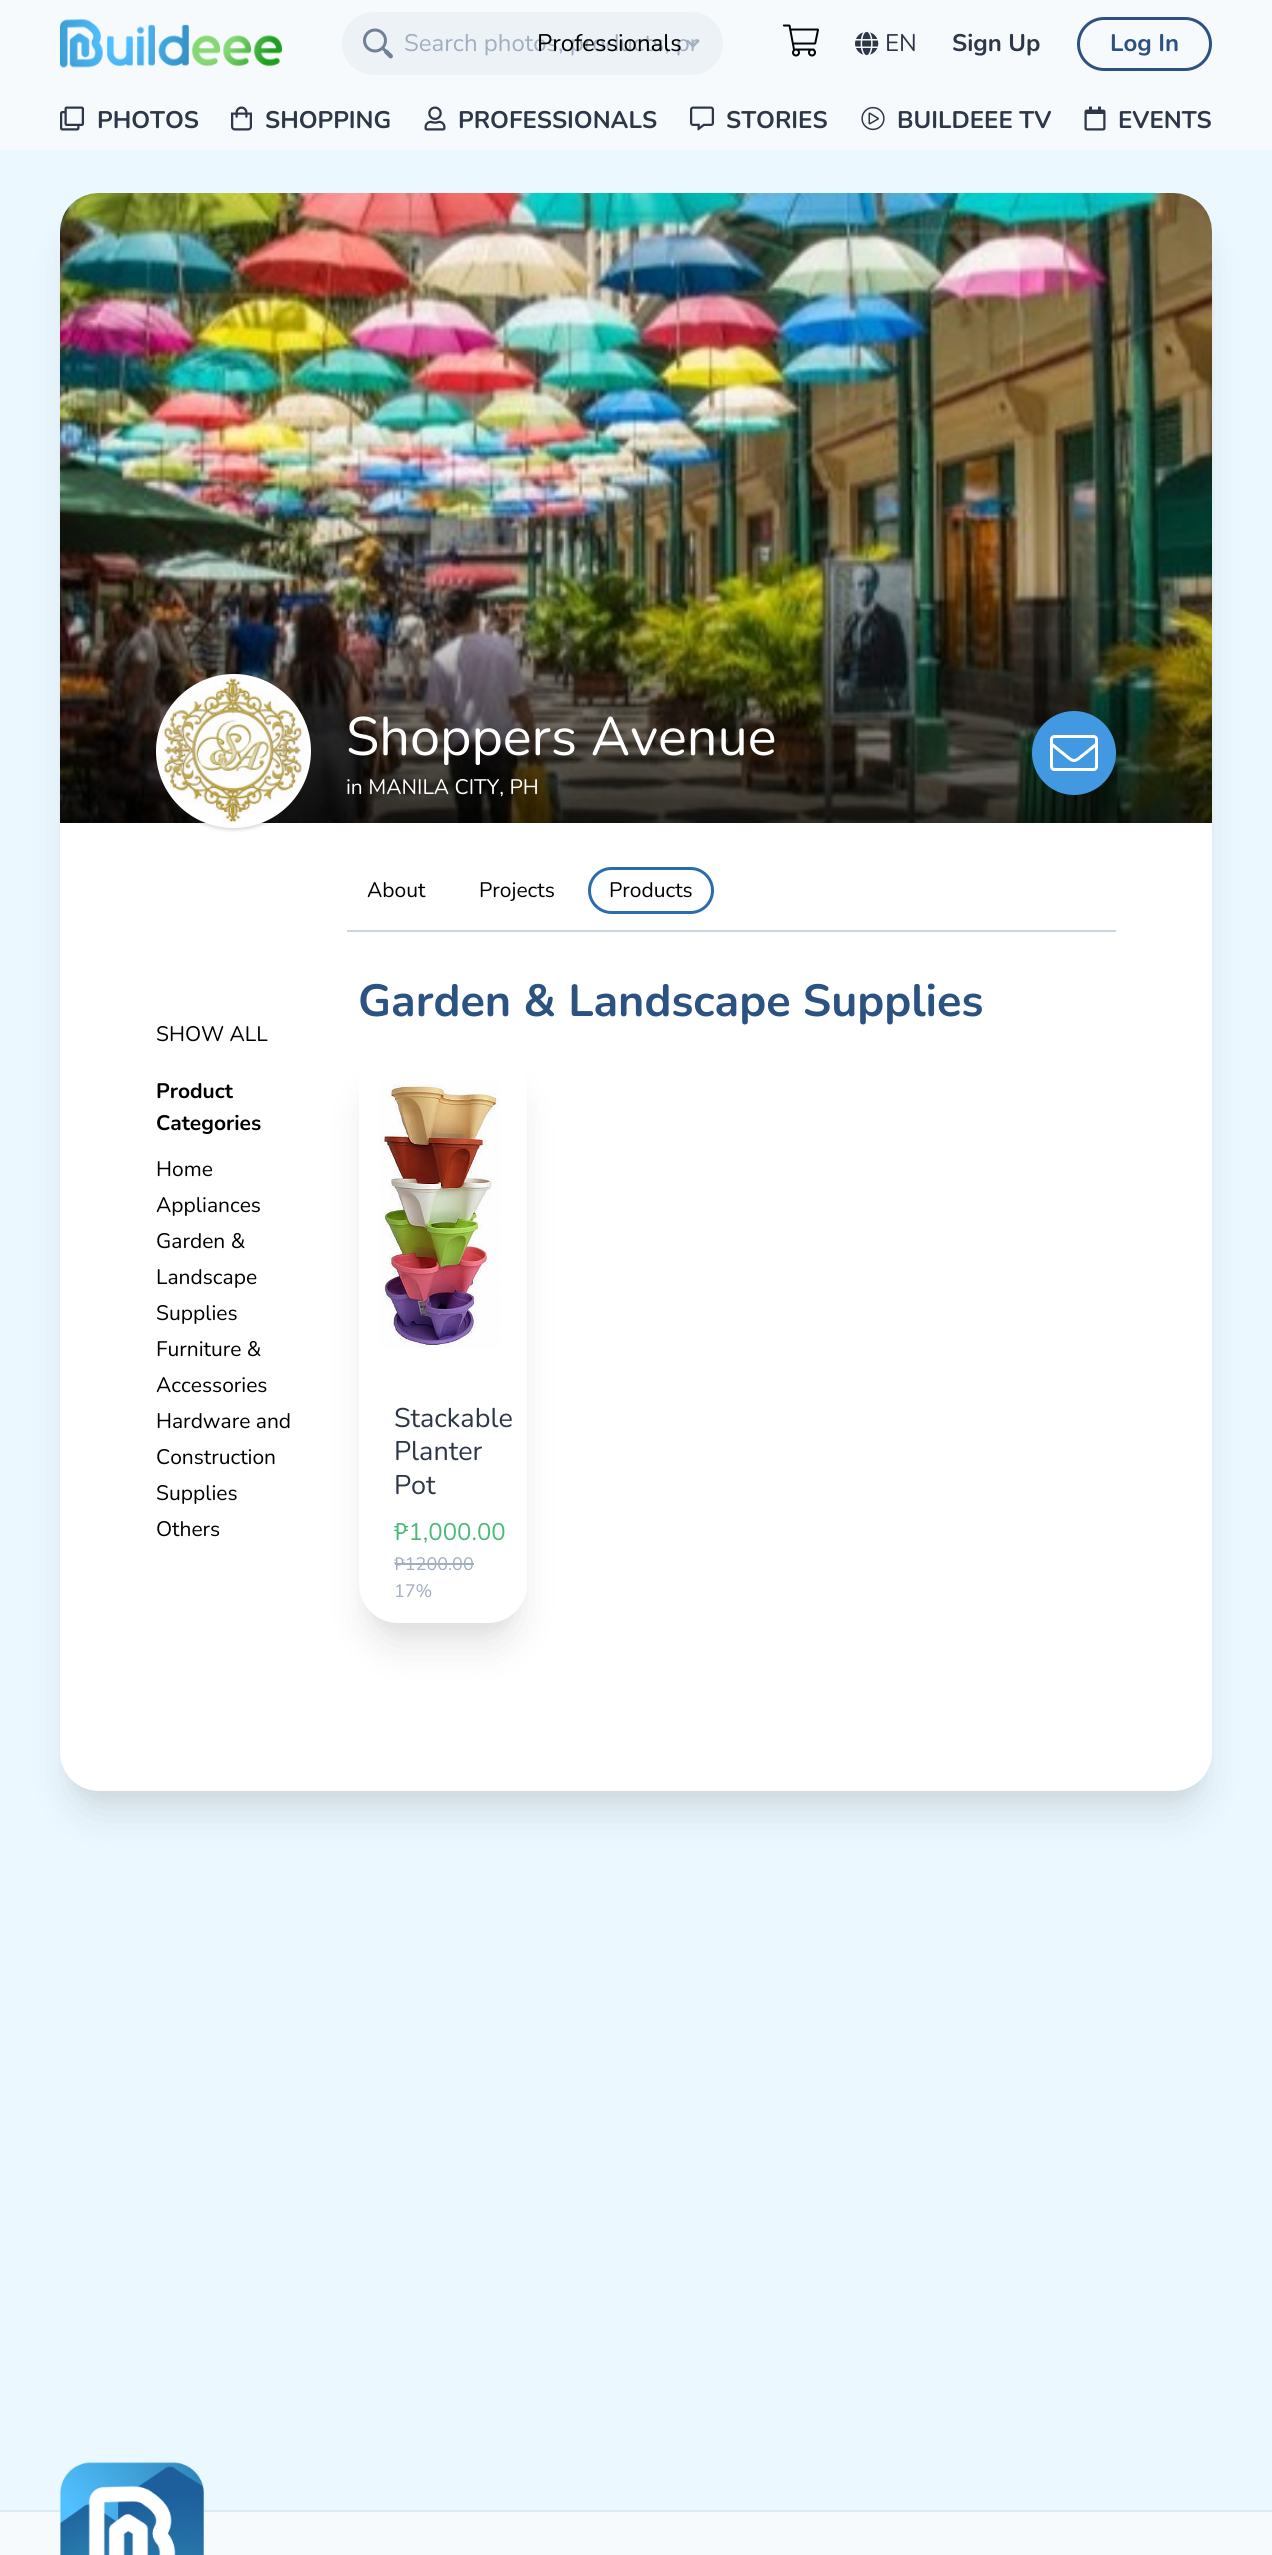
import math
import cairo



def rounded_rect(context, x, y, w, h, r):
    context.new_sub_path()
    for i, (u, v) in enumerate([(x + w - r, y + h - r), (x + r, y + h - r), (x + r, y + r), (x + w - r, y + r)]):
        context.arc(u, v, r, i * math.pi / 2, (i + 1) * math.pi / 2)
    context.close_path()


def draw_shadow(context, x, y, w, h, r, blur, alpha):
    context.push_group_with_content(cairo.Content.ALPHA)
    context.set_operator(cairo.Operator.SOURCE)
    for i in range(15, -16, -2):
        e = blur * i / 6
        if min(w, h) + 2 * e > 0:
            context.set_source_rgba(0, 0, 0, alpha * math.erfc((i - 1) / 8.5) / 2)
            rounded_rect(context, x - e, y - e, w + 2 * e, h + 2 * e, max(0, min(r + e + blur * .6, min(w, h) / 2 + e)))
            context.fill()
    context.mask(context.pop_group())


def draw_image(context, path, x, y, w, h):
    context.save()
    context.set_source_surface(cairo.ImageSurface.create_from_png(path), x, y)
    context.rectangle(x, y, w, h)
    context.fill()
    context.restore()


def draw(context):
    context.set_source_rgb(235 / 255, 248 / 255, 1)
    context.paint()
    context.set_source_rgb(247 / 255, 250 / 255, 252 / 255)
    context.rectangle(0, 0, 1272, 150)
    context.fill()
    draw_image(context, "images/1.png", 60, 19, 222, 49)
    context.set_source_rgb(237 / 255, 242 / 255, 247 / 255)
    rounded_rect(context, 342, 12, 381, 63, 31.5)
    context.fill()
    draw_image(context, "images/2.png", 363, 28, 30, 31)
    draw_image(context, "images/4.png", 783, 24, 36, 33)
    draw_image(context, "images/5.png", 855, 31, 24, 25)
    rounded_rect(context, 1078.5, 18.5, 132, 51, 25.5)
    context.set_source_rgb(44 / 255, 82 / 255, 130 / 255)
    context.set_line_width(3)
    context.stroke()
    draw_image(context, "images/6.png", 60, 106, 24, 25)
    draw_image(context, "images/7.png", 231, 106, 21, 25)
    draw_image(context, "images/8.png", 424, 106, 22, 25)
    draw_image(context, "images/9.png", 690, 106, 24, 25)
    draw_image(context, "images/10.png", 861, 106, 24, 25)
    draw_image(context, "images/11.png", 1084, 106, 22, 25)
    context.set_source_rgb(0, 0, 0)
    draw_shadow(context, 68, 216, 1137, 1583, 32, 7.5, 0.04)
    draw_shadow(context, 68, 231, 1137, 1583, 32, 19, 0.1)
    context.set_source_rgb(1, 1, 1)
    rounded_rect(context, 60, 194, 1152, 1597, 39)
    context.fill()
    draw_image(context, "images/12.png", 60, 193, 1152, 630)
    context.set_source_rgb(0, 0, 0)
    draw_shadow(context, 156, 675, 155, 155, 77.5, 1.5, 0.06)
    context.save()
    rounded_rect(context, 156, 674, 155, 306, 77.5)
    context.clip()
    draw_shadow(context, 156, 675, 155, 155, 77.5, 2, 0.1)
    context.restore()
    context.set_source_rgb(1, 1, 1)
    context.new_path()
    context.move_to(234, 674)
    context.curve_to(191, 674, 156, 709, 156, 751)
    context.curve_to(156, 794, 191, 828, 233, 828)
    context.line_to(234, 828)
    context.curve_to(276, 828, 311, 794, 311, 751)
    context.curve_to(311, 709, 276, 674, 234, 674)
    context.close_path()
    context.fill()
    draw_image(context, "images/13.png", 159, 676, 147, 147)
    context.set_source_rgb(66 / 255, 153 / 255, 225 / 255)
    context.arc(1074, 753, 42, 0, 2 * math.pi)
    context.fill()
    draw_image(context, "images/14.png", 1050, 735, 48, 36)
    context.set_source_rgb(203 / 255, 213 / 255, 224 / 255)
    context.rectangle(347, 930, 769, 2)
    context.fill()
    rounded_rect(context, 589.5, 868.5, 123, 44, 22)
    context.set_source_rgb(43 / 255, 108 / 255, 176 / 255)
    context.stroke()
    context.set_source_rgb(0, 0, 0)
    draw_shadow(context, 366, 1070, 153, 561, 32, 7.5, 0.04)
    draw_shadow(context, 366, 1085, 153, 561, 32, 19, 0.1)
    context.set_source_rgb(1, 1, 1)
    rounded_rect(context, 359, 1047, 168, 576, 39)
    context.fill()
    draw_image(context, "images/15.png", 380, 1081, 120, 268)
    context.set_source_rgb(160 / 255, 174 / 255, 192 / 255)
    context.rectangle(395, 1563, 79, 2)
    context.fill()
    context.set_source_rgb(247 / 255, 250 / 255, 252 / 255)
    context.rectangle(0, 2512, 1272, 43)
    context.fill()
    context.set_source_rgb(226 / 255, 232 / 255, 240 / 255)
    context.rectangle(0, 2510, 1272, 2)
    context.fill()
    draw_image(context, "images/16.png", 60, 2462, 144, 93)
    context.select_font_face("Nunito")
    context.set_font_size(24)
    context.set_source_rgb(160 / 255, 174 / 255, 192 / 255)
    context.move_to(404, 51)
    context.show_text("Search photos, products, pr")
    context.set_source_rgb(0, 0, 0)
    context.move_to(537, 51)
    context.show_text("Professionals")
    draw_image(context, "images/3.png", 686, 39, 14, 9)
    context.set_source_rgb(45 / 255, 55 / 255, 72 / 255)
    context.move_to(885, 51)
    context.show_text("EN")
    context.select_font_face("Nunito", cairo.FontSlant.NORMAL, cairo.FontWeight.BOLD)
    context.move_to(952, 51)
    context.show_text("Sign Up")
    context.set_source_rgb(44 / 255, 82 / 255, 130 / 255)
    context.move_to(1110, 51)
    context.show_text("Log In")
    context.set_source_rgb(45 / 255, 55 / 255, 72 / 255)
    context.move_to(97, 128)
    context.show_text("PHOTOS")
    context.move_to(265, 128)
    context.show_text("SHOPPING")
    context.move_to(458, 128)
    context.show_text("PROFESSIONALS")
    context.move_to(726, 128)
    context.show_text("STORIES")
    context.move_to(897, 128)
    context.show_text("BUILDEEE TV")
    context.move_to(1118, 128)
    context.show_text("EVENTS")
    context.select_font_face("Nunito")
    context.set_font_size(54)
    context.set_source_rgb(1, 1, 1)
    context.move_to(346, 755)
    context.show_text("Shoppers Avenue")
    context.set_font_size(21)
    context.move_to(346, 794)
    context.show_text("in MANILA CITY, PH")
    context.set_source_rgb(0, 0, 0)
    context.move_to(367, 897)
    context.show_text("About")
    context.move_to(479, 897)
    context.show_text("Projects")
    context.move_to(609, 897)
    context.show_text("Products")
    context.move_to(156, 1041)
    context.show_text("SHOW ALL")
    context.select_font_face("Nunito", cairo.FontSlant.NORMAL, cairo.FontWeight.BOLD)
    context.move_to(156, 1098)
    context.show_text("Product")
    context.move_to(156, 1130)
    context.show_text("Categories")
    context.select_font_face("Nunito")
    context.move_to(156, 1176)
    context.show_text("Home")
    context.move_to(156, 1212)
    context.show_text("Appliances")
    context.move_to(156, 1248)
    context.show_text("Garden &")
    context.move_to(156, 1284)
    context.show_text("Landscape")
    context.move_to(156, 1320)
    context.show_text("Supplies")
    context.move_to(156, 1356)
    context.show_text("Furniture &")
    context.move_to(156, 1392)
    context.show_text("Accessories")
    context.move_to(156, 1428)
    context.show_text("Hardware and")
    context.move_to(156, 1464)
    context.show_text("Construction")
    context.move_to(156, 1500)
    context.show_text("Supplies")
    context.move_to(156, 1536)
    context.show_text("Others")
    context.select_font_face("Nunito", cairo.FontSlant.NORMAL, cairo.FontWeight.BOLD)
    context.set_font_size(45)
    context.set_source_rgb(44 / 255, 82 / 255, 130 / 255)
    context.move_to(358, 1016)
    context.show_text("Garden & Landscape Supplies")
    context.select_font_face("Nunito")
    context.set_font_size(27)
    context.set_source_rgb(45 / 255, 55 / 255, 72 / 255)
    context.move_to(394, 1427)
    context.show_text("Stackable")
    context.move_to(394, 1460)
    context.show_text("Planter")
    context.move_to(394, 1494)
    context.show_text("Pot")
    context.set_font_size(24)
    context.set_source_rgb(72 / 255, 187 / 255, 120 / 255)
    context.move_to(394, 1540)
    context.show_text("₱1,000.00")
    context.set_font_size(18)
    context.set_source_rgb(160 / 255, 174 / 255, 192 / 255)
    context.move_to(394, 1570)
    context.show_text("₱1200.00")
    context.move_to(394, 1597)
    context.show_text("17%")


surface = cairo.ImageSurface(cairo.Format.RGB24, 1272, 2555)
context = cairo.Context(surface)
options = cairo.FontOptions()
options.set_hint_metrics(cairo.HintMetrics.OFF)
options.set_hint_style(cairo.HintStyle.NONE)
context.set_font_options(options)
context.set_miter_limit(4)
draw(context)
surface.write_to_png("out.png")
